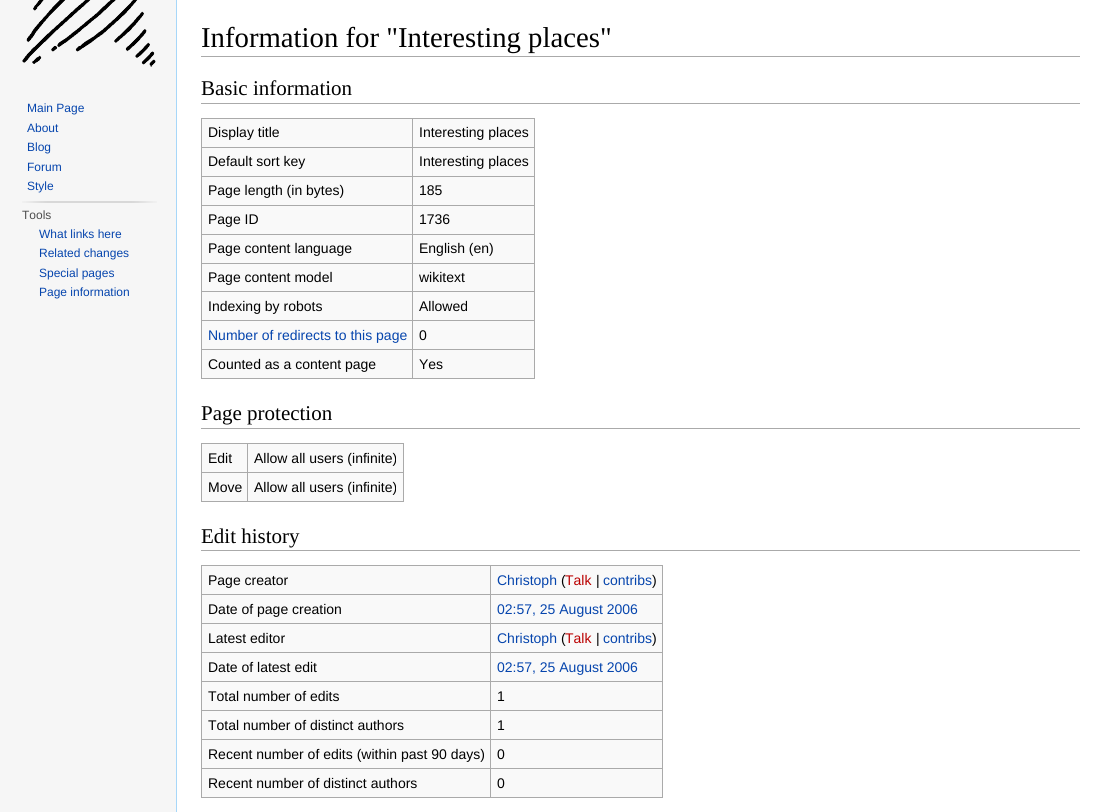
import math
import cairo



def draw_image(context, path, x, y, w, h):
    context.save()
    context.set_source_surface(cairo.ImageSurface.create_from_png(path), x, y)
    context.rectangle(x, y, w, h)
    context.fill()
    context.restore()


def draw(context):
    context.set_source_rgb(246 / 255, 246 / 255, 246 / 255)
    context.paint()
    draw_image(context, "images/1.png", 22, 0, 134, 67)
    draw_image(context, "images/2.png", 22, 201, 135, 2)
    context.set_source_rgb(1, 1, 1)
    context.rectangle(177, 0, 927, 812)
    context.fill()
    context.set_source_rgb(167 / 255, 215 / 255, 249 / 255)
    context.rectangle(176, 0, 1, 812)
    context.fill()
    context.set_source_rgb(170 / 255, 170 / 255, 170 / 255)
    context.rectangle(201, 56, 879, 1)
    context.fill()
    context.rectangle(201, 103, 879, 1)
    context.fill()
    context.set_source_rgb(249 / 255, 249 / 255, 249 / 255)
    context.rectangle(202, 119, 332, 259)
    context.fill()
    context.set_source_rgb(170 / 255, 170 / 255, 170 / 255)
    context.rectangle(201, 118, 334, 1)
    context.fill()
    context.rectangle(534, 118, 1, 261)
    context.fill()
    context.rectangle(201, 378, 334, 1)
    context.fill()
    context.rectangle(201, 118, 1, 261)
    context.fill()
    context.rectangle(412, 147, 123, 1)
    context.fill()
    context.rectangle(412, 176, 123, 1)
    context.fill()
    context.rectangle(412, 205, 123, 1)
    context.fill()
    context.rectangle(412, 234, 123, 1)
    context.fill()
    context.rectangle(412, 263, 123, 1)
    context.fill()
    context.rectangle(412, 291, 123, 1)
    context.fill()
    context.rectangle(412, 320, 123, 1)
    context.fill()
    context.rectangle(412, 349, 123, 1)
    context.fill()
    context.rectangle(412, 349, 1, 30)
    context.fill()
    context.rectangle(201, 349, 212, 1)
    context.fill()
    context.rectangle(412, 320, 1, 30)
    context.fill()
    context.rectangle(201, 320, 212, 1)
    context.fill()
    context.rectangle(412, 291, 1, 30)
    context.fill()
    context.rectangle(201, 291, 212, 1)
    context.fill()
    context.rectangle(412, 263, 1, 29)
    context.fill()
    context.rectangle(201, 263, 212, 1)
    context.fill()
    context.rectangle(412, 234, 1, 30)
    context.fill()
    context.rectangle(201, 234, 212, 1)
    context.fill()
    context.rectangle(412, 205, 1, 30)
    context.fill()
    context.rectangle(201, 205, 212, 1)
    context.fill()
    context.rectangle(412, 176, 1, 30)
    context.fill()
    context.rectangle(201, 176, 212, 1)
    context.fill()
    context.rectangle(412, 147, 1, 30)
    context.fill()
    context.rectangle(201, 147, 212, 1)
    context.fill()
    context.rectangle(412, 118, 1, 30)
    context.fill()
    context.rectangle(201, 428, 879, 1)
    context.fill()
    context.set_source_rgb(249 / 255, 249 / 255, 249 / 255)
    context.rectangle(202, 444, 201, 57)
    context.fill()
    context.set_source_rgb(170 / 255, 170 / 255, 170 / 255)
    context.rectangle(201, 443, 203, 1)
    context.fill()
    context.rectangle(403, 443, 1, 59)
    context.fill()
    context.rectangle(201, 501, 203, 1)
    context.fill()
    context.rectangle(201, 443, 1, 59)
    context.fill()
    context.rectangle(247, 472, 157, 1)
    context.fill()
    context.rectangle(247, 472, 1, 30)
    context.fill()
    context.rectangle(201, 472, 47, 1)
    context.fill()
    context.rectangle(247, 443, 1, 30)
    context.fill()
    context.rectangle(201, 550, 879, 1)
    context.fill()
    context.set_source_rgb(249 / 255, 249 / 255, 249 / 255)
    context.rectangle(202, 566, 460, 231)
    context.fill()
    context.set_source_rgb(170 / 255, 170 / 255, 170 / 255)
    context.rectangle(201, 565, 462, 1)
    context.fill()
    context.rectangle(662, 565, 1, 233)
    context.fill()
    context.rectangle(201, 797, 462, 1)
    context.fill()
    context.rectangle(201, 565, 1, 233)
    context.fill()
    context.rectangle(490, 594, 173, 1)
    context.fill()
    context.rectangle(490, 623, 173, 1)
    context.fill()
    context.rectangle(490, 652, 173, 1)
    context.fill()
    context.rectangle(490, 681, 173, 1)
    context.fill()
    context.rectangle(490, 710, 173, 1)
    context.fill()
    context.rectangle(490, 739, 173, 1)
    context.fill()
    context.rectangle(490, 768, 173, 1)
    context.fill()
    context.rectangle(490, 768, 1, 30)
    context.fill()
    context.rectangle(201, 768, 290, 1)
    context.fill()
    context.rectangle(490, 739, 1, 30)
    context.fill()
    context.rectangle(201, 739, 290, 1)
    context.fill()
    context.rectangle(490, 710, 1, 30)
    context.fill()
    context.rectangle(201, 710, 290, 1)
    context.fill()
    context.rectangle(490, 681, 1, 30)
    context.fill()
    context.rectangle(201, 681, 290, 1)
    context.fill()
    context.rectangle(490, 652, 1, 30)
    context.fill()
    context.rectangle(201, 652, 290, 1)
    context.fill()
    context.rectangle(490, 623, 1, 30)
    context.fill()
    context.rectangle(201, 623, 290, 1)
    context.fill()
    context.rectangle(490, 594, 1, 30)
    context.fill()
    context.rectangle(201, 594, 290, 1)
    context.fill()
    context.rectangle(490, 565, 1, 30)
    context.fill()
    context.select_font_face("Liberation Sans")
    context.set_font_size(12)
    context.set_source_rgb(6 / 255, 69 / 255, 173 / 255)
    context.move_to(27, 112)
    context.show_text("Main Page")
    context.move_to(27, 132)
    context.show_text("About")
    context.move_to(27, 151)
    context.show_text("Blog")
    context.move_to(27, 171)
    context.show_text("Forum")
    context.move_to(27, 190)
    context.show_text("Style")
    context.set_source_rgb(77 / 255, 77 / 255, 77 / 255)
    context.move_to(22, 219)
    context.show_text("Tools")
    context.set_source_rgb(6 / 255, 69 / 255, 173 / 255)
    context.move_to(39, 238)
    context.show_text("What links here")
    context.move_to(39, 257)
    context.show_text("Related changes")
    context.move_to(39, 277)
    context.show_text("Special pages")
    context.move_to(39, 296)
    context.show_text("Page information")
    context.select_font_face("Liberation Serif")
    context.set_font_size(28.75)
    context.set_source_rgb(0, 0, 0)
    context.move_to(201, 47)
    context.show_text("Information for \"Interesting places\"")
    context.set_font_size(21)
    context.move_to(201, 95)
    context.show_text("Basic information")
    context.select_font_face("Liberation Sans")
    context.set_font_size(14)
    context.move_to(208, 137)
    context.show_text("Display title")
    context.move_to(419, 137)
    context.show_text("Interesting places")
    context.move_to(208, 166)
    context.show_text("Default sort key")
    context.move_to(419, 166)
    context.show_text("Interesting places")
    context.move_to(208, 195)
    context.show_text("Page length (in bytes)")
    context.move_to(419, 195)
    context.show_text("185")
    context.move_to(208, 224)
    context.show_text("Page ID")
    context.move_to(419, 224)
    context.show_text("1736")
    context.move_to(208, 253)
    context.show_text("Page content language")
    context.move_to(419, 253)
    context.show_text("English (en)")
    context.move_to(208, 282)
    context.show_text("Page content model")
    context.move_to(419, 282)
    context.show_text("wikitext")
    context.move_to(208, 311)
    context.show_text("Indexing by robots")
    context.move_to(419, 311)
    context.show_text("Allowed")
    context.set_source_rgb(6 / 255, 69 / 255, 173 / 255)
    context.move_to(208, 340)
    context.show_text("Number of redirects to this page")
    context.set_source_rgb(0, 0, 0)
    context.move_to(419, 340)
    context.show_text("0")
    context.move_to(208, 369)
    context.show_text("Counted as a content page")
    context.move_to(419, 369)
    context.show_text("Yes")
    context.select_font_face("Liberation Serif")
    context.set_font_size(21)
    context.move_to(201, 420)
    context.show_text("Page protection")
    context.select_font_face("Liberation Sans")
    context.set_font_size(14)
    context.move_to(208, 463)
    context.show_text("Edit")
    context.move_to(254, 463)
    context.show_text("Allow all users (infinite)")
    context.move_to(208, 492)
    context.show_text("Move")
    context.move_to(254, 492)
    context.show_text("Allow all users (infinite)")
    context.select_font_face("Liberation Serif")
    context.set_font_size(21)
    context.move_to(201, 543)
    context.show_text("Edit history")
    context.select_font_face("Liberation Sans")
    context.set_font_size(14)
    context.move_to(208, 585)
    context.show_text("Page creator")
    context.set_source_rgb(6 / 255, 69 / 255, 173 / 255)
    context.move_to(497, 585)
    context.show_text("Christoph")
    context.set_source_rgb(0, 0, 0)
    context.move_to(561, 585)
    context.show_text("(")
    context.set_source_rgb(186 / 255, 0, 0)
    context.move_to(565, 585)
    context.show_text("Talk")
    context.set_source_rgb(0, 0, 0)
    context.move_to(596, 585)
    context.show_text("|")
    context.set_source_rgb(6 / 255, 69 / 255, 173 / 255)
    context.move_to(603, 585)
    context.show_text("contribs")
    context.set_source_rgb(0, 0, 0)
    context.move_to(652, 585)
    context.show_text(")")
    context.move_to(208, 614)
    context.show_text("Date of page creation")
    context.set_source_rgb(6 / 255, 69 / 255, 173 / 255)
    context.move_to(497, 614)
    context.show_text("02:57, 25 August 2006")
    context.set_source_rgb(0, 0, 0)
    context.move_to(208, 643)
    context.show_text("Latest editor")
    context.set_source_rgb(6 / 255, 69 / 255, 173 / 255)
    context.move_to(497, 643)
    context.show_text("Christoph")
    context.set_source_rgb(0, 0, 0)
    context.move_to(561, 643)
    context.show_text("(")
    context.set_source_rgb(186 / 255, 0, 0)
    context.move_to(565, 643)
    context.show_text("Talk")
    context.set_source_rgb(0, 0, 0)
    context.move_to(596, 643)
    context.show_text("|")
    context.set_source_rgb(6 / 255, 69 / 255, 173 / 255)
    context.move_to(603, 643)
    context.show_text("contribs")
    context.set_source_rgb(0, 0, 0)
    context.move_to(652, 643)
    context.show_text(")")
    context.move_to(208, 672)
    context.show_text("Date of latest edit")
    context.set_source_rgb(6 / 255, 69 / 255, 173 / 255)
    context.move_to(497, 672)
    context.show_text("02:57, 25 August 2006")
    context.set_source_rgb(0, 0, 0)
    context.move_to(208, 701)
    context.show_text("Total number of edits")
    context.move_to(497, 701)
    context.show_text("1")
    context.move_to(208, 730)
    context.show_text("Total number of distinct authors")
    context.move_to(497, 730)
    context.show_text("1")
    context.move_to(208, 759)
    context.show_text("Recent number of edits (within past 90 days)")
    context.move_to(497, 759)
    context.show_text("0")
    context.move_to(208, 788)
    context.show_text("Recent number of distinct authors")
    context.move_to(497, 788)
    context.show_text("0")


surface = cairo.ImageSurface(cairo.Format.RGB24, 1104, 812)
context = cairo.Context(surface)
options = cairo.FontOptions()
options.set_hint_metrics(cairo.HintMetrics.OFF)
options.set_hint_style(cairo.HintStyle.NONE)
context.set_font_options(options)
context.set_miter_limit(4)
draw(context)
surface.write_to_png("out.png")
